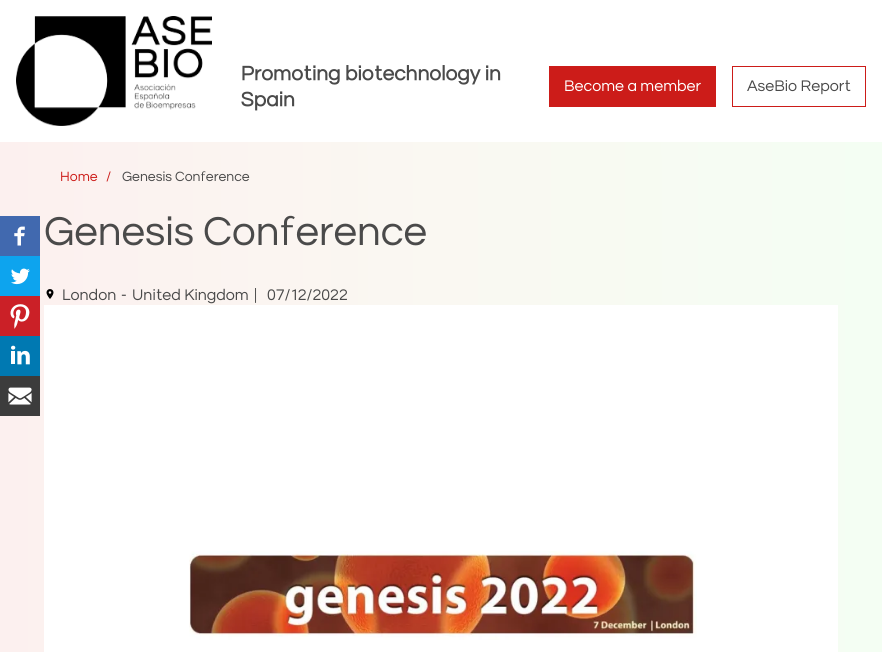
import math
import cairo



def draw_image(context, path, x, y, w, h):
    context.save()
    context.set_source_surface(cairo.ImageSurface.create_from_png(path), x, y)
    context.rectangle(x, y, w, h)
    context.fill()
    context.restore()


def draw(context):
    context.set_source_rgb(1, 1, 1)
    context.paint()
    draw_image(context, "images/1.png", 16, 16, 196, 110)
    context.set_source_rgb(204 / 255, 28 / 255, 25 / 255)
    context.rectangle(549, 66, 167, 41)
    context.fill()
    context.rectangle(732.5, 66.5, 133, 40)
    context.set_line_width(1)
    context.stroke()
    gradient = cairo.LinearGradient(0, 165, 882, 164)
    gradient.add_color_stop_rgba(0, 252 / 255, 240 / 255, 239 / 255, 1)
    gradient.add_color_stop_rgba(0.5, 250 / 255, 248 / 255, 242 / 255, 1)
    gradient.add_color_stop_rgba(1, 244 / 255, 254 / 255, 243 / 255, 1)
    context.set_source(gradient)
    context.rectangle(0, 142, 882, 45)
    context.fill()
    gradient = cairo.LinearGradient(0, 443, 882, 443)
    gradient.add_color_stop_rgba(0, 252 / 255, 240 / 255, 239 / 255, 1)
    gradient.add_color_stop_rgba(0.5, 250 / 255, 248 / 255, 242 / 255, 1)
    gradient.add_color_stop_rgba(1, 244 / 255, 254 / 255, 243 / 255, 1)
    context.set_source(gradient)
    context.rectangle(0, 187, 882, 465)
    context.fill()
    draw_image(context, "images/2.png", 0, 216, 40, 40)
    draw_image(context, "images/3.png", 0, 256, 40, 40)
    draw_image(context, "images/4.png", 0, 296, 40, 40)
    draw_image(context, "images/5.png", 0, 336, 40, 40)
    draw_image(context, "images/6.png", 0, 376, 40, 40)
    draw_image(context, "images/7.png", 46, 289, 8, 10)
    context.set_source_rgb(1, 1, 1)
    context.rectangle(44, 305, 794, 347)
    context.fill()
    draw_image(context, "images/8.png", 189, 551, 508, 89)
    context.select_font_face("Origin", cairo.FontSlant.NORMAL, cairo.FontWeight.BOLD)
    context.set_font_size(21)
    context.set_source_rgb(74 / 255, 74 / 255, 74 / 255)
    context.move_to(241, 80)
    context.show_text("Promoting biotechnology in")
    context.move_to(241, 106)
    context.show_text("Spain")
    context.select_font_face("Origin")
    context.set_font_size(16)
    context.set_source_rgb(1, 1, 1)
    context.move_to(564, 91)
    context.show_text("Become a member")
    context.set_source_rgb(74 / 255, 74 / 255, 74 / 255)
    context.move_to(747, 91)
    context.show_text("AseBio Report")
    context.set_font_size(14)
    context.set_source_rgb(204 / 255, 28 / 255, 25 / 255)
    context.move_to(60, 181)
    context.show_text("Home")
    context.move_to(106, 181)
    context.show_text("/")
    context.set_source_rgb(74 / 255, 74 / 255, 74 / 255)
    context.move_to(122, 181)
    context.show_text("Genesis Conference")
    context.set_font_size(42)
    context.move_to(44, 245)
    context.show_text("Genesis Conference")
    context.set_font_size(16)
    context.move_to(62, 300)
    context.show_text("London")
    context.move_to(121, 300)
    context.show_text("-")
    context.move_to(132, 300)
    context.show_text("United Kingdom")
    context.move_to(254, 300)
    context.show_text("|")
    context.move_to(267, 300)
    context.show_text("07/12/2022")


surface = cairo.ImageSurface(cairo.Format.RGB24, 882, 652)
context = cairo.Context(surface)
options = cairo.FontOptions()
options.set_hint_metrics(cairo.HintMetrics.OFF)
options.set_hint_style(cairo.HintStyle.NONE)
context.set_font_options(options)
context.set_miter_limit(4)
draw(context)
surface.write_to_png("out.png")
